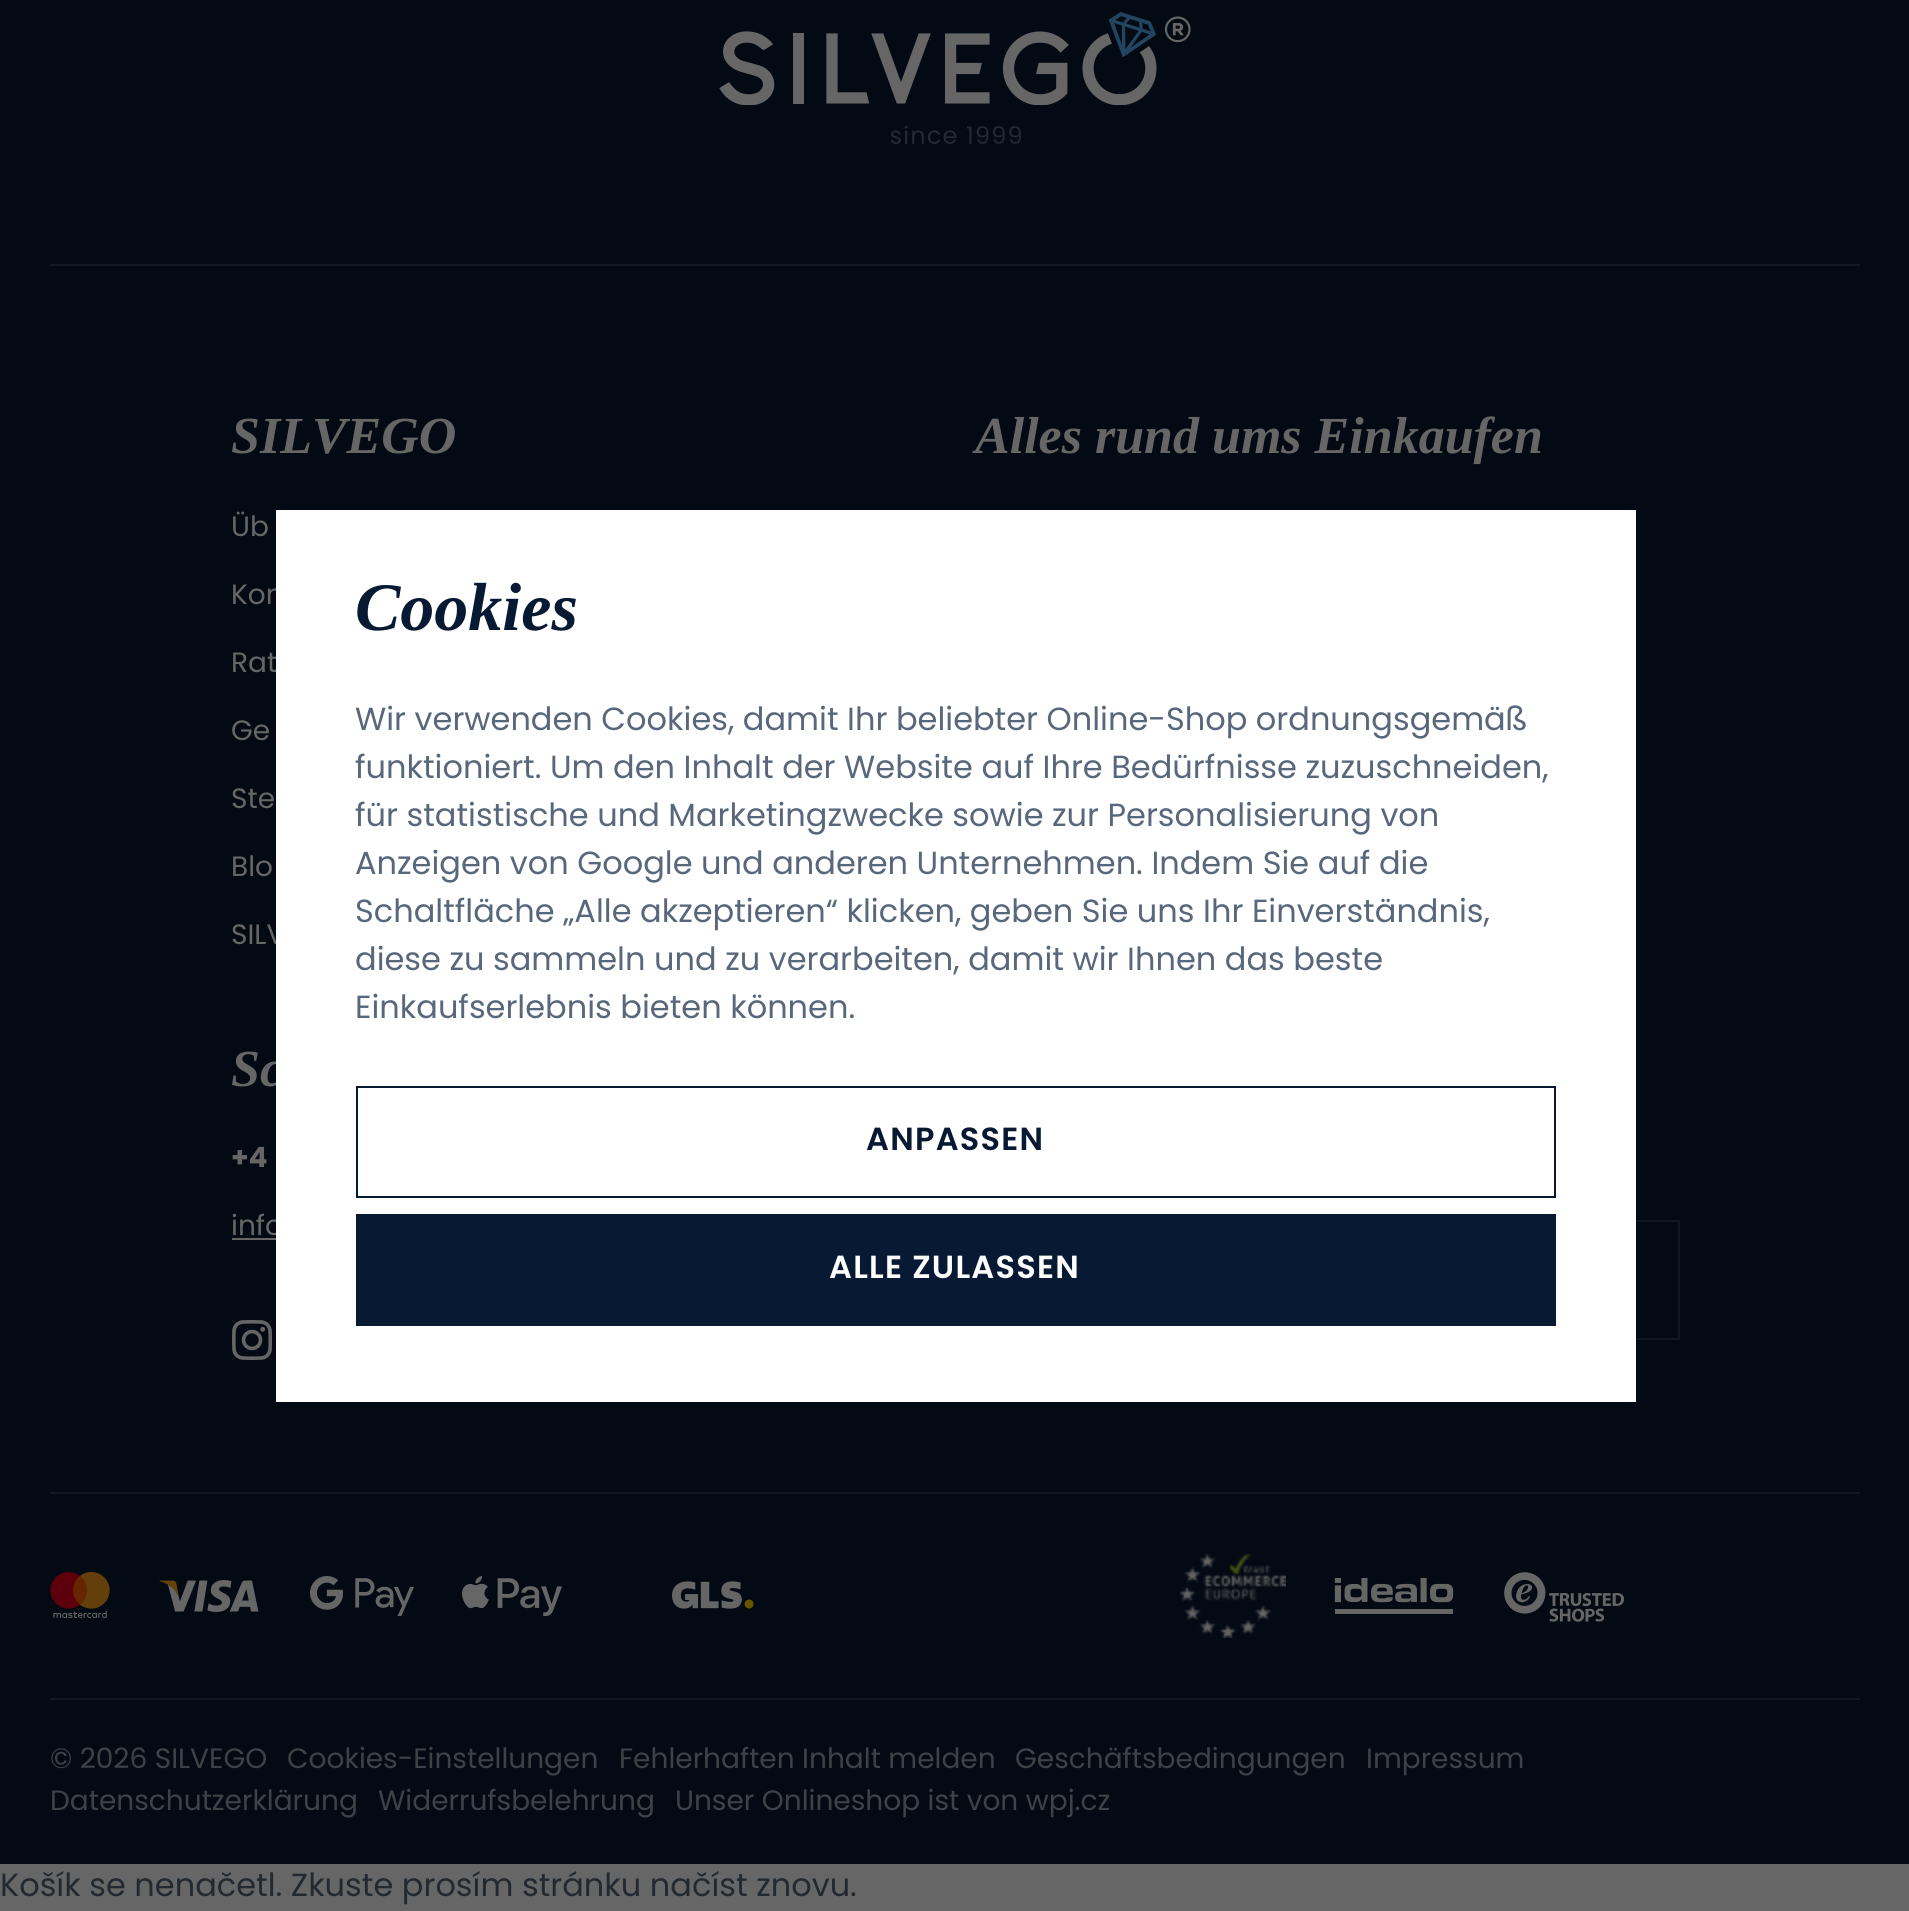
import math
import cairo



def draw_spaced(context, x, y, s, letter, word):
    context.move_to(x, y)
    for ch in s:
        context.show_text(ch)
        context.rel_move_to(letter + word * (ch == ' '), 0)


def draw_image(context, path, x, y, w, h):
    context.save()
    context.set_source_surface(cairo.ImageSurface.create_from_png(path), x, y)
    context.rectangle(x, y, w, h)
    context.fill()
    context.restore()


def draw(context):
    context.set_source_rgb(102 / 255, 102 / 255, 102 / 255)
    context.paint()
    context.set_source_rgb(3 / 255, 10 / 255, 20 / 255)
    context.rectangle(0, 0, 1909, 1864)
    context.fill()
    context.set_source_rgb(16 / 255, 24 / 255, 34 / 255)
    context.rectangle(50, 264, 1810, 2)
    context.fill()
    draw_image(context, "images/1.png", 719, 12, 472, 132)
    context.set_source_rgb(102 / 255, 102 / 255, 102 / 255)
    context.rectangle(232, 1238, 44, 2)
    context.fill()
    draw_image(context, "images/2.png", 232, 1320, 41, 40)
    context.set_source_rgb(16 / 255, 24 / 255, 34 / 255)
    context.rectangle(1636, 1220, 44, 2)
    context.fill()
    context.rectangle(1678, 1220, 2, 120)
    context.fill()
    context.rectangle(1636, 1338, 44, 2)
    context.fill()
    context.rectangle(50, 1492, 1810, 2)
    context.fill()
    draw_image(context, "images/3.png", 50, 1572, 60, 46)
    draw_image(context, "images/4.png", 159, 1580, 100, 32)
    draw_image(context, "images/5.png", 310, 1576, 104, 40)
    draw_image(context, "images/6.png", 462, 1576, 100, 40)
    draw_image(context, "images/7.png", 672, 1581, 82, 28)
    draw_image(context, "images/8.png", 1180, 1554, 106, 84)
    draw_image(context, "images/9.png", 1334, 1578, 120, 36)
    draw_image(context, "images/10.png", 1504, 1572, 120, 50)
    context.rectangle(50, 1698, 1810, 2)
    context.fill()
    context.select_font_face("Tinos", cairo.FontSlant.ITALIC, cairo.FontWeight.BOLD)
    context.set_font_size(52)
    context.set_source_rgb(102 / 255, 102 / 255, 102 / 255)
    context.move_to(231, 453)
    context.show_text("SILVEGO")
    context.select_font_face("Poppins")
    context.set_font_size(28)
    context.move_to(231, 536)
    context.show_text("Üb")
    context.move_to(231, 604)
    context.show_text("Kon")
    context.move_to(231, 672)
    context.show_text("Rat")
    context.move_to(231, 740)
    context.show_text("Ge")
    context.move_to(231, 808)
    context.show_text("Ste")
    context.move_to(231, 876)
    context.show_text("Blo")
    context.move_to(231, 944)
    context.show_text("SILV")
    context.select_font_face("Tinos", cairo.FontSlant.ITALIC, cairo.FontWeight.BOLD)
    context.set_font_size(52)
    context.move_to(975, 453)
    context.show_text("Alles rund ums Einkaufen")
    context.move_to(231, 1086)
    context.show_text("Sc")
    context.select_font_face("Poppins", cairo.FontSlant.NORMAL, cairo.FontWeight.BOLD)
    context.set_font_size(28)
    context.move_to(231, 1167)
    context.show_text("+4")
    context.select_font_face("Poppins")
    context.move_to(231, 1235)
    context.show_text("info")
    context.set_source_rgb(62 / 255, 66 / 255, 71 / 255)
    context.move_to(50, 1768)
    context.show_text("© 2026 SILVEGO")
    context.move_to(287, 1768)
    context.show_text("Cookies-Einstellungen")
    context.move_to(619, 1768)
    context.show_text("Fehlerhaften Inhalt melden")
    context.move_to(1015, 1768)
    context.show_text("Geschäftsbedingungen")
    context.move_to(1366, 1768)
    context.show_text("Impressum")
    context.move_to(50, 1810)
    context.show_text("Datenschutzerklärung")
    context.move_to(378, 1810)
    context.show_text("Widerrufsbelehrung")
    context.move_to(675, 1810)
    context.show_text("Unser Onlineshop ist von wpj.cz")
    context.set_source_rgb(1, 1, 1)
    context.rectangle(276, 510, 1360, 892)
    context.fill()
    context.select_font_face("Tinos", cairo.FontSlant.ITALIC, cairo.FontWeight.BOLD)
    context.set_font_size(68)
    context.set_source_rgb(8 / 255, 26 / 255, 51 / 255)
    context.move_to(355, 630)
    context.show_text("Cookies")
    context.select_font_face("Poppins")
    context.set_font_size(32)
    context.set_source_rgb(88 / 255, 103 / 255, 123 / 255)
    context.move_to(355, 730)
    context.show_text("Wir verwenden Cookies, damit Ihr beliebter Online-Shop ordnungsgemäß")
    context.move_to(355, 778)
    context.show_text("funktioniert. Um den Inhalt der Website auf Ihre Bedürfnisse zuzuschneiden,")
    context.move_to(355, 826)
    context.show_text("für statistische und Marketingzwecke sowie zur Personalisierung von")
    context.move_to(355, 874)
    context.show_text("Anzeigen von Google und anderen Unternehmen. Indem Sie auf die")
    context.move_to(355, 922)
    context.show_text("Schaltfläche „Alle akzeptieren“ klicken, geben Sie uns Ihr Einverständnis,")
    context.move_to(355, 970)
    context.show_text("diese zu sammeln und zu verarbeiten, damit wir Ihnen das beste")
    context.move_to(355, 1018)
    context.show_text("Einkaufserlebnis bieten können.")
    context.rectangle(357, 1087, 1198, 110)
    context.set_source_rgb(8 / 255, 26 / 255, 51 / 255)
    context.stroke()
    context.select_font_face("Poppins SemiBold")
    draw_spaced(context, 866, 1150, "ANPASSEN", 1.25, 0)
    context.rectangle(356, 1214, 1200, 112)
    context.fill()
    context.set_source_rgb(1, 1, 1)
    draw_spaced(context, 829, 1278, "ALLE ZULASSEN", 1.25, 0)
    context.select_font_face("Poppins")
    context.set_source_rgb(35 / 255, 41 / 255, 49 / 255)
    context.move_to(0, 1896)
    context.show_text("Košík se nenačetl. Zkuste prosím stránku načíst znovu.")


surface = cairo.ImageSurface(cairo.Format.RGB24, 1909, 1911)
context = cairo.Context(surface)
options = cairo.FontOptions()
options.set_hint_metrics(cairo.HintMetrics.OFF)
options.set_hint_style(cairo.HintStyle.NONE)
context.set_font_options(options)
context.set_miter_limit(4)
draw(context)
surface.write_to_png("out.png")
